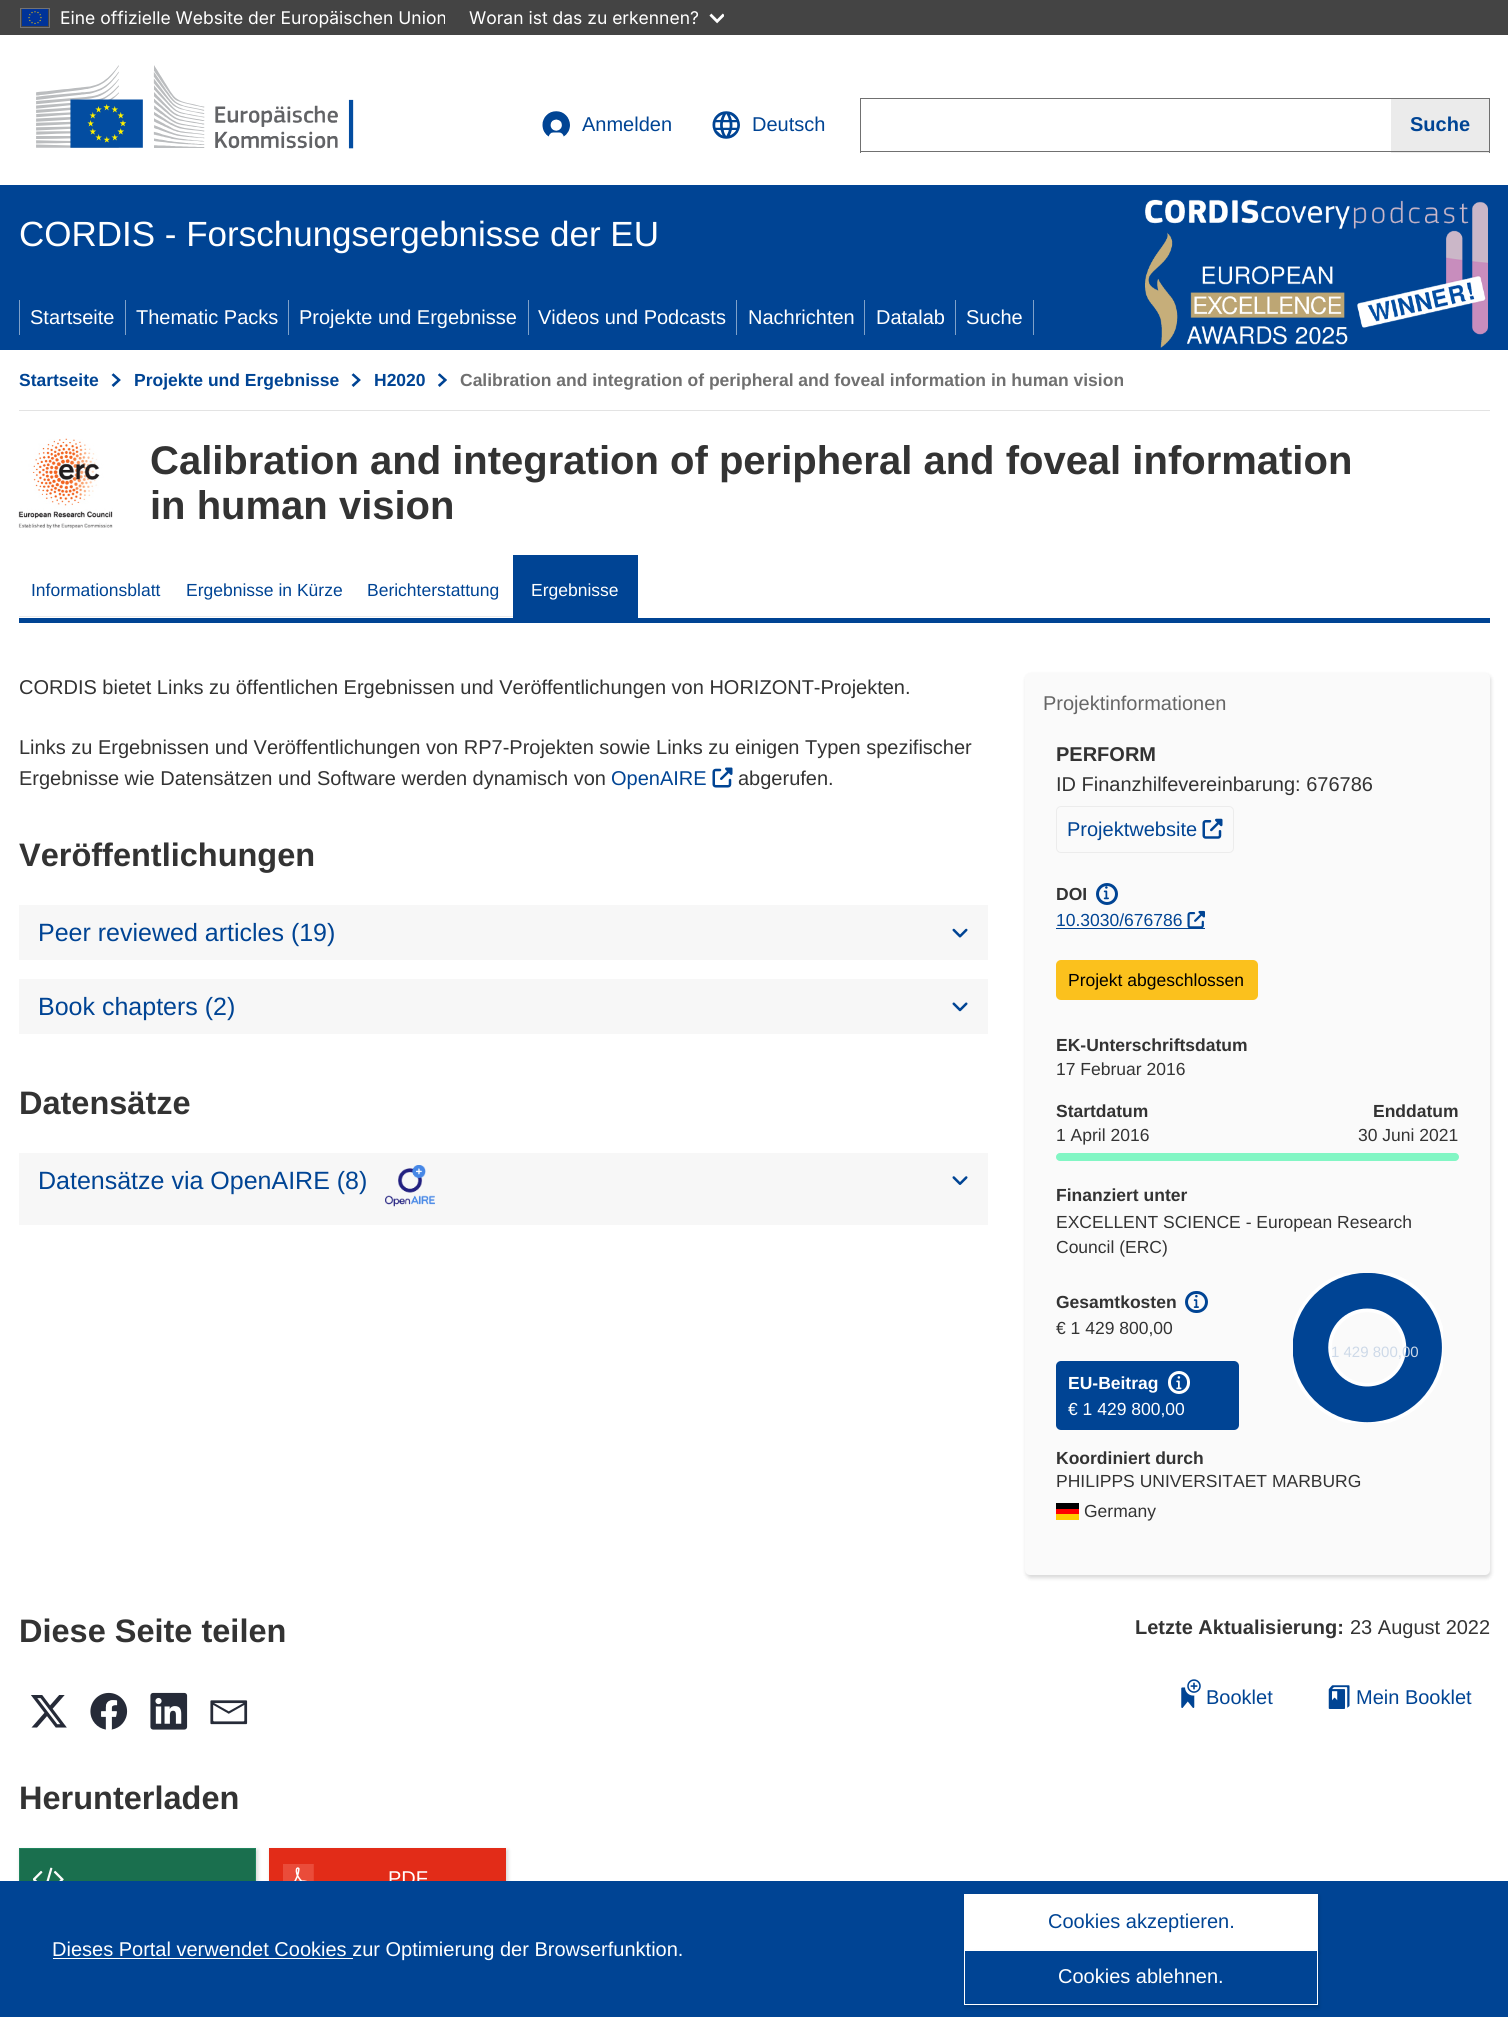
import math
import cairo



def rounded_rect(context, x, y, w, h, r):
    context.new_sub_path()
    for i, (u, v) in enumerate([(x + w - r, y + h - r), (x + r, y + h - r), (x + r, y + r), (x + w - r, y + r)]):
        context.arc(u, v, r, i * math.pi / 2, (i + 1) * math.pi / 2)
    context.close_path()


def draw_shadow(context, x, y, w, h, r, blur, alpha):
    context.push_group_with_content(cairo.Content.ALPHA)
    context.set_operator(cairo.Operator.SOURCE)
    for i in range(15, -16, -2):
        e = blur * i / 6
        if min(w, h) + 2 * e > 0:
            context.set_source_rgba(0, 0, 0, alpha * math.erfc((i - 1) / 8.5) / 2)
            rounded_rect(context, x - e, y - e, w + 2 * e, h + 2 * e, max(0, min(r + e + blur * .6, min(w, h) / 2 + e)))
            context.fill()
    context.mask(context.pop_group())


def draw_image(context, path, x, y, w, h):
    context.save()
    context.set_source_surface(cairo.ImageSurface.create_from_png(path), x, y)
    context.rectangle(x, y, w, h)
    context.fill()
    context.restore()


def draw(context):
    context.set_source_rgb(1, 1, 1)
    context.paint()
    context.set_source_rgb(68 / 255, 68 / 255, 68 / 255)
    context.rectangle(0, 0, 1508, 35)
    context.fill()
    context.rectangle(20.5, 8.5, 29, 19)
    context.set_source_rgb(115 / 255, 115 / 255, 115 / 255)
    context.set_line_width(1)
    context.stroke()
    draw_image(context, "images/1.png", 22, 9, 26, 17)
    draw_image(context, "images/2.png", 709, 13, 15, 11)
    draw_image(context, "images/3.png", 36, 65, 318, 84)
    draw_image(context, "images/4.png", 542, 111, 28, 26)
    draw_image(context, "images/5.png", 712, 111, 28, 28)
    context.set_source_rgb(112 / 255, 112 / 255, 112 / 255)
    context.rectangle(860, 98, 630, 1)
    context.fill()
    context.rectangle(860, 151, 531, 1)
    context.fill()
    context.rectangle(860, 98, 1, 55)
    context.fill()
    context.set_source_rgb(235 / 255, 235 / 255, 235 / 255)
    context.rectangle(1391, 99, 98, 54)
    context.fill()
    context.set_source_rgb(112 / 255, 112 / 255, 112 / 255)
    context.rectangle(1489, 98, 1, 55)
    context.fill()
    context.rectangle(1391, 151, 99, 1)
    context.fill()
    context.set_source_rgb(0, 68 / 255, 148 / 255)
    context.rectangle(0, 185, 1508, 165)
    context.fill()
    draw_image(context, "images/6.png", 1145, 199, 343, 149)
    context.set_source_rgb(127 / 255, 161 / 255, 201 / 255)
    context.rectangle(19, 300, 1, 35)
    context.fill()
    context.rectangle(125, 300, 1, 35)
    context.fill()
    context.rectangle(288, 300, 1, 35)
    context.fill()
    context.rectangle(528, 300, 1, 35)
    context.fill()
    context.rectangle(736, 300, 1, 35)
    context.fill()
    context.rectangle(864, 300, 1, 35)
    context.fill()
    context.rectangle(955, 300, 1, 35)
    context.fill()
    context.rectangle(1033, 300, 1, 35)
    context.fill()
    context.set_source_rgb(227 / 255, 227 / 255, 227 / 255)
    context.rectangle(19, 410, 1471, 1)
    context.fill()
    draw_image(context, "images/7.png", 111, 373, 10, 14)
    draw_image(context, "images/7.png", 351, 373, 10, 14)
    draw_image(context, "images/8.png", 438, 373, 9, 14)
    draw_image(context, "images/9.png", 18, 438, 95, 91)
    context.set_source_rgb(0, 68 / 255, 148 / 255)
    context.rectangle(19, 618, 1471, 5)
    context.fill()
    context.set_source_rgb(236 / 255, 236 / 255, 236 / 255)
    context.rectangle(19, 616, 494, 1)
    context.fill()
    context.set_source_rgb(0, 68 / 255, 148 / 255)
    context.rectangle(513, 555, 125, 63)
    context.fill()
    draw_image(context, "images/10.png", 712, 767, 21, 21)
    context.set_source_rgb(247 / 255, 247 / 255, 247 / 255)
    context.rectangle(19, 905, 969, 55)
    context.fill()
    draw_image(context, "images/11.png", 952, 928, 16, 10)
    context.rectangle(19, 979, 969, 55)
    context.fill()
    draw_image(context, "images/12.png", 952, 1002, 16, 10)
    context.rectangle(19, 1153, 969, 72)
    context.fill()
    draw_image(context, "images/13.png", 385, 1165, 50, 42)
    draw_image(context, "images/14.png", 952, 1176, 16, 9)
    context.set_source_rgb(0, 0, 0)
    draw_shadow(context, 1026, 675, 465, 903, 5, 2, 0.15)
    context.set_source_rgb(250 / 255, 250 / 255, 250 / 255)
    rounded_rect(context, 1025, 673, 465, 902, 5)
    context.fill()
    rounded_rect(context, 1056.5, 806.5, 177, 46, 4.5)
    context.set_source_rgb(236 / 255, 236 / 255, 236 / 255)
    context.stroke()
    draw_image(context, "images/15.png", 1202, 818, 21, 21)
    context.arc(1107, 894, 9.5, 0, 2 * math.pi)
    context.set_source_rgb(0, 68 / 255, 148 / 255)
    context.set_line_width(3)
    context.stroke()
    draw_image(context, "images/16.png", 1103, 886, 6, 14)
    context.rectangle(1056, 928, 149, 1)
    context.fill()
    draw_image(context, "images/17.png", 1187, 910, 18, 18)
    context.set_source_rgb(251 / 255, 193 / 255, 29 / 255)
    rounded_rect(context, 1056, 960, 202, 40, 5)
    context.fill()
    context.set_source_rgb(130 / 255, 246 / 255, 196 / 255)
    rounded_rect(context, 1056, 1153, 403, 8, 4)
    context.fill()
    rounded_rect(context, 1186.5, 1292.5, 20, 19, 9.5)
    context.set_source_rgb(0, 68 / 255, 148 / 255)
    context.stroke()
    draw_image(context, "images/18.png", 1193, 1294, 6, 14)
    rounded_rect(context, 1056, 1361, 183, 69, 5)
    context.fill()
    rounded_rect(context, 1169.5, 1372.5, 19, 20, 9.5)
    context.set_source_rgb(1, 1, 1)
    context.stroke()
    draw_image(context, "images/19.png", 1176, 1376, 6, 14)
    draw_image(context, "images/20.png", 1293, 1273, 150, 150)
    context.set_source_rgb(1, 204 / 255, 0)
    context.rectangle(1056, 1514, 23, 6)
    context.fill()
    context.set_source_rgb(0, 0, 1 / 255)
    context.rectangle(1056, 1503, 23, 6)
    context.fill()
    context.set_source_rgb(1, 0, 0)
    context.rectangle(1056, 1509, 23, 5)
    context.fill()
    draw_image(context, "images/21.png", 31, 1695, 36, 33)
    draw_image(context, "images/22.png", 90, 1692, 38, 38)
    draw_image(context, "images/23.png", 150, 1692, 38, 38)
    draw_image(context, "images/24.png", 210, 1700, 38, 25)
    context.set_source_rgb(0, 0, 0)
    draw_shadow(context, 20, 1850, 238, 63, 0, 2, 0.15)
    context.set_source_rgb(26 / 255, 111 / 255, 78 / 255)
    context.rectangle(20, 1849, 235, 32)
    context.fill()
    draw_image(context, "images/25.png", 33, 1867, 31, 14)
    context.rectangle(19.5, 1848.5, 236, 61)
    context.set_source_rgb(31 / 255, 132 / 255, 93 / 255)
    context.set_line_width(1)
    context.stroke()
    context.set_source_rgb(0, 0, 0)
    draw_shadow(context, 270, 1850, 238, 63, 0, 2, 0.15)
    context.set_source_rgb(226 / 255, 44 / 255, 24 / 255)
    context.rectangle(269, 1848, 237, 33)
    context.fill()
    draw_image(context, "images/26.png", 283, 1864, 31, 17)
    draw_image(context, "images/27.png", 1181, 1679, 20, 29)
    draw_image(context, "images/28.png", 1328, 1685, 22, 24)
    context.select_font_face("Inter")
    context.set_font_size(17.5)
    context.set_source_rgb(1, 1, 1)
    context.move_to(60, 24)
    context.show_text("Eine offizielle Website der Europäischen Union")
    context.move_to(469, 24)
    context.show_text("Woran ist das zu erkennen?")
    context.select_font_face("Liberation Sans")
    context.set_font_size(20)
    context.set_source_rgb(0, 68 / 255, 148 / 255)
    context.move_to(582, 131)
    context.show_text("Anmelden")
    context.move_to(752, 131)
    context.show_text("Deutsch")
    context.select_font_face("Liberation Sans", cairo.FontSlant.NORMAL, cairo.FontWeight.BOLD)
    context.move_to(1410, 131)
    context.show_text("Suche")
    context.select_font_face("Liberation Sans")
    context.set_font_size(35)
    context.set_source_rgb(1, 1, 1)
    context.move_to(19, 246)
    context.show_text("CORDIS - Forschungsergebnisse der EU")
    context.set_font_size(20)
    context.move_to(30, 324)
    context.show_text("Startseite")
    context.move_to(136, 324)
    context.show_text("Thematic Packs")
    context.move_to(299, 324)
    context.show_text("Projekte und Ergebnisse")
    context.move_to(538, 324)
    context.show_text("Videos und Podcasts")
    context.move_to(748, 324)
    context.show_text("Nachrichten")
    context.move_to(876, 324)
    context.show_text("Datalab")
    context.move_to(966, 324)
    context.show_text("Suche")
    context.select_font_face("Liberation Sans", cairo.FontSlant.NORMAL, cairo.FontWeight.BOLD)
    context.set_font_size(17.5)
    context.set_source_rgb(0, 68 / 255, 148 / 255)
    context.move_to(19, 386)
    context.show_text("Startseite")
    context.move_to(134, 386)
    context.show_text("Projekte und Ergebnisse")
    context.move_to(374, 386)
    context.show_text("H2020")
    context.set_source_rgb(112 / 255, 112 / 255, 112 / 255)
    context.move_to(460, 386)
    context.show_text("Calibration and integration of peripheral and foveal information in human vision")
    context.set_font_size(40)
    context.set_source_rgb(51 / 255, 51 / 255, 51 / 255)
    context.move_to(150, 474)
    context.show_text("Calibration and integration of peripheral and foveal information")
    context.move_to(150, 519)
    context.show_text("in human vision")
    context.select_font_face("Liberation Sans")
    context.set_font_size(17.5)
    context.set_source_rgb(0, 68 / 255, 148 / 255)
    context.move_to(31, 596)
    context.show_text("Informationsblatt")
    context.move_to(186, 596)
    context.show_text("Ergebnisse in Kürze")
    context.move_to(367, 596)
    context.show_text("Berichterstattung")
    context.set_source_rgb(1, 1, 1)
    context.move_to(531, 596)
    context.show_text("Ergebnisse")
    context.set_font_size(20)
    context.set_source_rgb(51 / 255, 51 / 255, 51 / 255)
    context.move_to(19, 694)
    context.show_text("CORDIS bietet Links zu öffentlichen Ergebnissen und Veröffentlichungen von HORIZONT-Projekten.")
    context.move_to(19, 754)
    context.show_text("Links zu Ergebnissen und Veröffentlichungen von RP7-Projekten sowie Links zu einigen Typen spezifischer")
    context.move_to(19, 785)
    context.show_text("Ergebnisse wie Datensätzen und Software werden dynamisch von")
    context.set_source_rgb(0, 68 / 255, 148 / 255)
    context.move_to(611, 785)
    context.show_text("OpenAIRE")
    context.set_source_rgb(51 / 255, 51 / 255, 51 / 255)
    context.move_to(738, 785)
    context.show_text("abgerufen.")
    context.select_font_face("Liberation Sans", cairo.FontSlant.NORMAL, cairo.FontWeight.BOLD)
    context.set_font_size(32.5)
    context.move_to(19, 866)
    context.show_text("Veröffentlichungen")
    context.select_font_face("Liberation Sans")
    context.set_font_size(25)
    context.set_source_rgb(0, 68 / 255, 148 / 255)
    context.move_to(38, 941)
    context.show_text("Peer reviewed articles (19)")
    context.move_to(38, 1015)
    context.show_text("Book chapters (2)")
    context.select_font_face("Liberation Sans", cairo.FontSlant.NORMAL, cairo.FontWeight.BOLD)
    context.set_font_size(32.5)
    context.set_source_rgb(51 / 255, 51 / 255, 51 / 255)
    context.move_to(19, 1114)
    context.show_text("Datensätze")
    context.select_font_face("Liberation Sans")
    context.set_font_size(25)
    context.set_source_rgb(0, 68 / 255, 148 / 255)
    context.move_to(38, 1189)
    context.show_text("Datensätze via OpenAIRE (8)")
    context.set_font_size(20)
    context.set_source_rgb(102 / 255, 102 / 255, 102 / 255)
    context.move_to(1043, 710)
    context.show_text("Projektinformationen")
    context.select_font_face("Liberation Sans", cairo.FontSlant.NORMAL, cairo.FontWeight.BOLD)
    context.set_source_rgb(51 / 255, 51 / 255, 51 / 255)
    context.move_to(1056, 761)
    context.show_text("PERFORM")
    context.select_font_face("Liberation Sans")
    context.move_to(1056, 791)
    context.show_text("ID Finanzhilfevereinbarung: 676786")
    context.set_source_rgb(0, 68 / 255, 148 / 255)
    context.move_to(1067, 836)
    context.show_text("Projektwebsite")
    context.select_font_face("Liberation Sans", cairo.FontSlant.NORMAL, cairo.FontWeight.BOLD)
    context.set_font_size(17.5)
    context.set_source_rgb(51 / 255, 51 / 255, 51 / 255)
    context.move_to(1056, 900)
    context.show_text("DOI")
    context.select_font_face("Liberation Sans")
    context.set_source_rgb(0, 68 / 255, 148 / 255)
    context.move_to(1056, 926)
    context.show_text("10.3030/676786")
    context.set_source_rgb(0, 0, 0)
    context.move_to(1068, 986)
    context.show_text("Projekt abgeschlossen")
    context.select_font_face("Liberation Sans", cairo.FontSlant.NORMAL, cairo.FontWeight.BOLD)
    context.set_source_rgb(51 / 255, 51 / 255, 51 / 255)
    context.move_to(1056, 1051)
    context.show_text("EK-Unterschriftsdatum")
    context.select_font_face("Liberation Sans")
    context.move_to(1056, 1075)
    context.show_text("17 Februar 2016")
    context.select_font_face("Liberation Sans", cairo.FontSlant.NORMAL, cairo.FontWeight.BOLD)
    context.move_to(1056, 1117)
    context.show_text("Startdatum")
    context.select_font_face("Liberation Sans")
    context.move_to(1056, 1141)
    context.show_text("1 April 2016")
    context.select_font_face("Liberation Sans", cairo.FontSlant.NORMAL, cairo.FontWeight.BOLD)
    context.move_to(1373, 1117)
    context.show_text("Enddatum")
    context.select_font_face("Liberation Sans")
    context.move_to(1358, 1141)
    context.show_text("30 Juni 2021")
    context.select_font_face("Liberation Sans", cairo.FontSlant.NORMAL, cairo.FontWeight.BOLD)
    context.move_to(1056, 1201)
    context.show_text("Finanziert unter")
    context.select_font_face("Liberation Sans")
    context.move_to(1056, 1228)
    context.show_text("EXCELLENT SCIENCE - European Research")
    context.move_to(1056, 1253)
    context.show_text("Council (ERC)")
    context.select_font_face("Liberation Sans", cairo.FontSlant.NORMAL, cairo.FontWeight.BOLD)
    context.move_to(1056, 1308)
    context.show_text("Gesamtkosten")
    context.select_font_face("Liberation Sans")
    context.move_to(1056, 1334)
    context.show_text("€ 1 429 800,00")
    context.select_font_face("Liberation Sans", cairo.FontSlant.NORMAL, cairo.FontWeight.BOLD)
    context.set_source_rgb(1, 1, 1)
    context.move_to(1068, 1389)
    context.show_text("EU-Beitrag")
    context.select_font_face("Liberation Sans")
    context.move_to(1068, 1415)
    context.show_text("€ 1 429 800,00")
    context.set_font_size(15)
    context.set_source_rgb(205 / 255, 217 / 255, 232 / 255)
    context.move_to(1331, 1357)
    context.show_text("1 429 800,00")
    context.select_font_face("Liberation Sans", cairo.FontSlant.NORMAL, cairo.FontWeight.BOLD)
    context.set_font_size(17.5)
    context.set_source_rgb(51 / 255, 51 / 255, 51 / 255)
    context.move_to(1056, 1464)
    context.show_text("Koordiniert durch")
    context.select_font_face("Liberation Sans")
    context.move_to(1056, 1487)
    context.show_text("PHILIPPS UNIVERSITAET MARBURG")
    context.move_to(1084, 1517)
    context.show_text("Germany")
    context.select_font_face("Liberation Sans", cairo.FontSlant.NORMAL, cairo.FontWeight.BOLD)
    context.set_font_size(32.5)
    context.move_to(19, 1642)
    context.show_text("Diese Seite teilen")
    context.move_to(19, 1809)
    context.show_text("Herunterladen")
    context.select_font_face("Liberation Sans")
    context.set_font_size(20)
    context.set_source_rgb(1, 1, 1)
    context.move_to(388, 1885)
    context.show_text("PDF")
    context.select_font_face("Liberation Sans", cairo.FontSlant.NORMAL, cairo.FontWeight.BOLD)
    context.set_source_rgb(51 / 255, 51 / 255, 51 / 255)
    context.move_to(1135, 1634)
    context.show_text("Letzte Aktualisierung:")
    context.select_font_face("Liberation Sans")
    context.move_to(1350, 1634)
    context.show_text("23 August 2022")
    context.set_source_rgb(0, 68 / 255, 148 / 255)
    context.move_to(1206, 1704)
    context.show_text("Booklet")
    context.move_to(1356, 1704)
    context.show_text("Mein Booklet")
    context.rectangle(0, 1881, 1508, 136)
    context.fill()
    context.set_source_rgb(1, 1, 1)
    context.rectangle(53, 1958, 300, 1)
    context.fill()
    context.move_to(52, 1956)
    context.show_text("Dieses Portal verwendet Cookies zur Optimierung der Browserfunktion.")
    context.set_source_rgb(0, 0, 0)
    draw_shadow(context, 965, 1896, 354, 57, 0, 2, 0.15)
    context.set_source_rgb(1, 1, 1)
    context.rectangle(964, 1894, 354, 56)
    context.fill()
    context.set_source_rgb(0, 68 / 255, 148 / 255)
    context.move_to(1048, 1928)
    context.show_text("Cookies akzeptieren.")
    context.set_source_rgb(0, 0, 0)
    draw_shadow(context, 965, 1953, 354, 55, 0, 2, 0.15)
    context.set_source_rgb(0, 68 / 255, 148 / 255)
    context.rectangle(964.5, 1950.5, 353, 54)
    context.fill_preserve()
    context.set_source_rgb(1, 1, 1)
    context.stroke()
    context.move_to(1058, 1983)
    context.show_text("Cookies ablehnen.")


surface = cairo.ImageSurface(cairo.Format.RGB24, 1508, 2017)
context = cairo.Context(surface)
options = cairo.FontOptions()
options.set_hint_metrics(cairo.HintMetrics.OFF)
options.set_hint_style(cairo.HintStyle.NONE)
context.set_font_options(options)
context.set_miter_limit(4)
draw(context)
surface.write_to_png("out.png")
